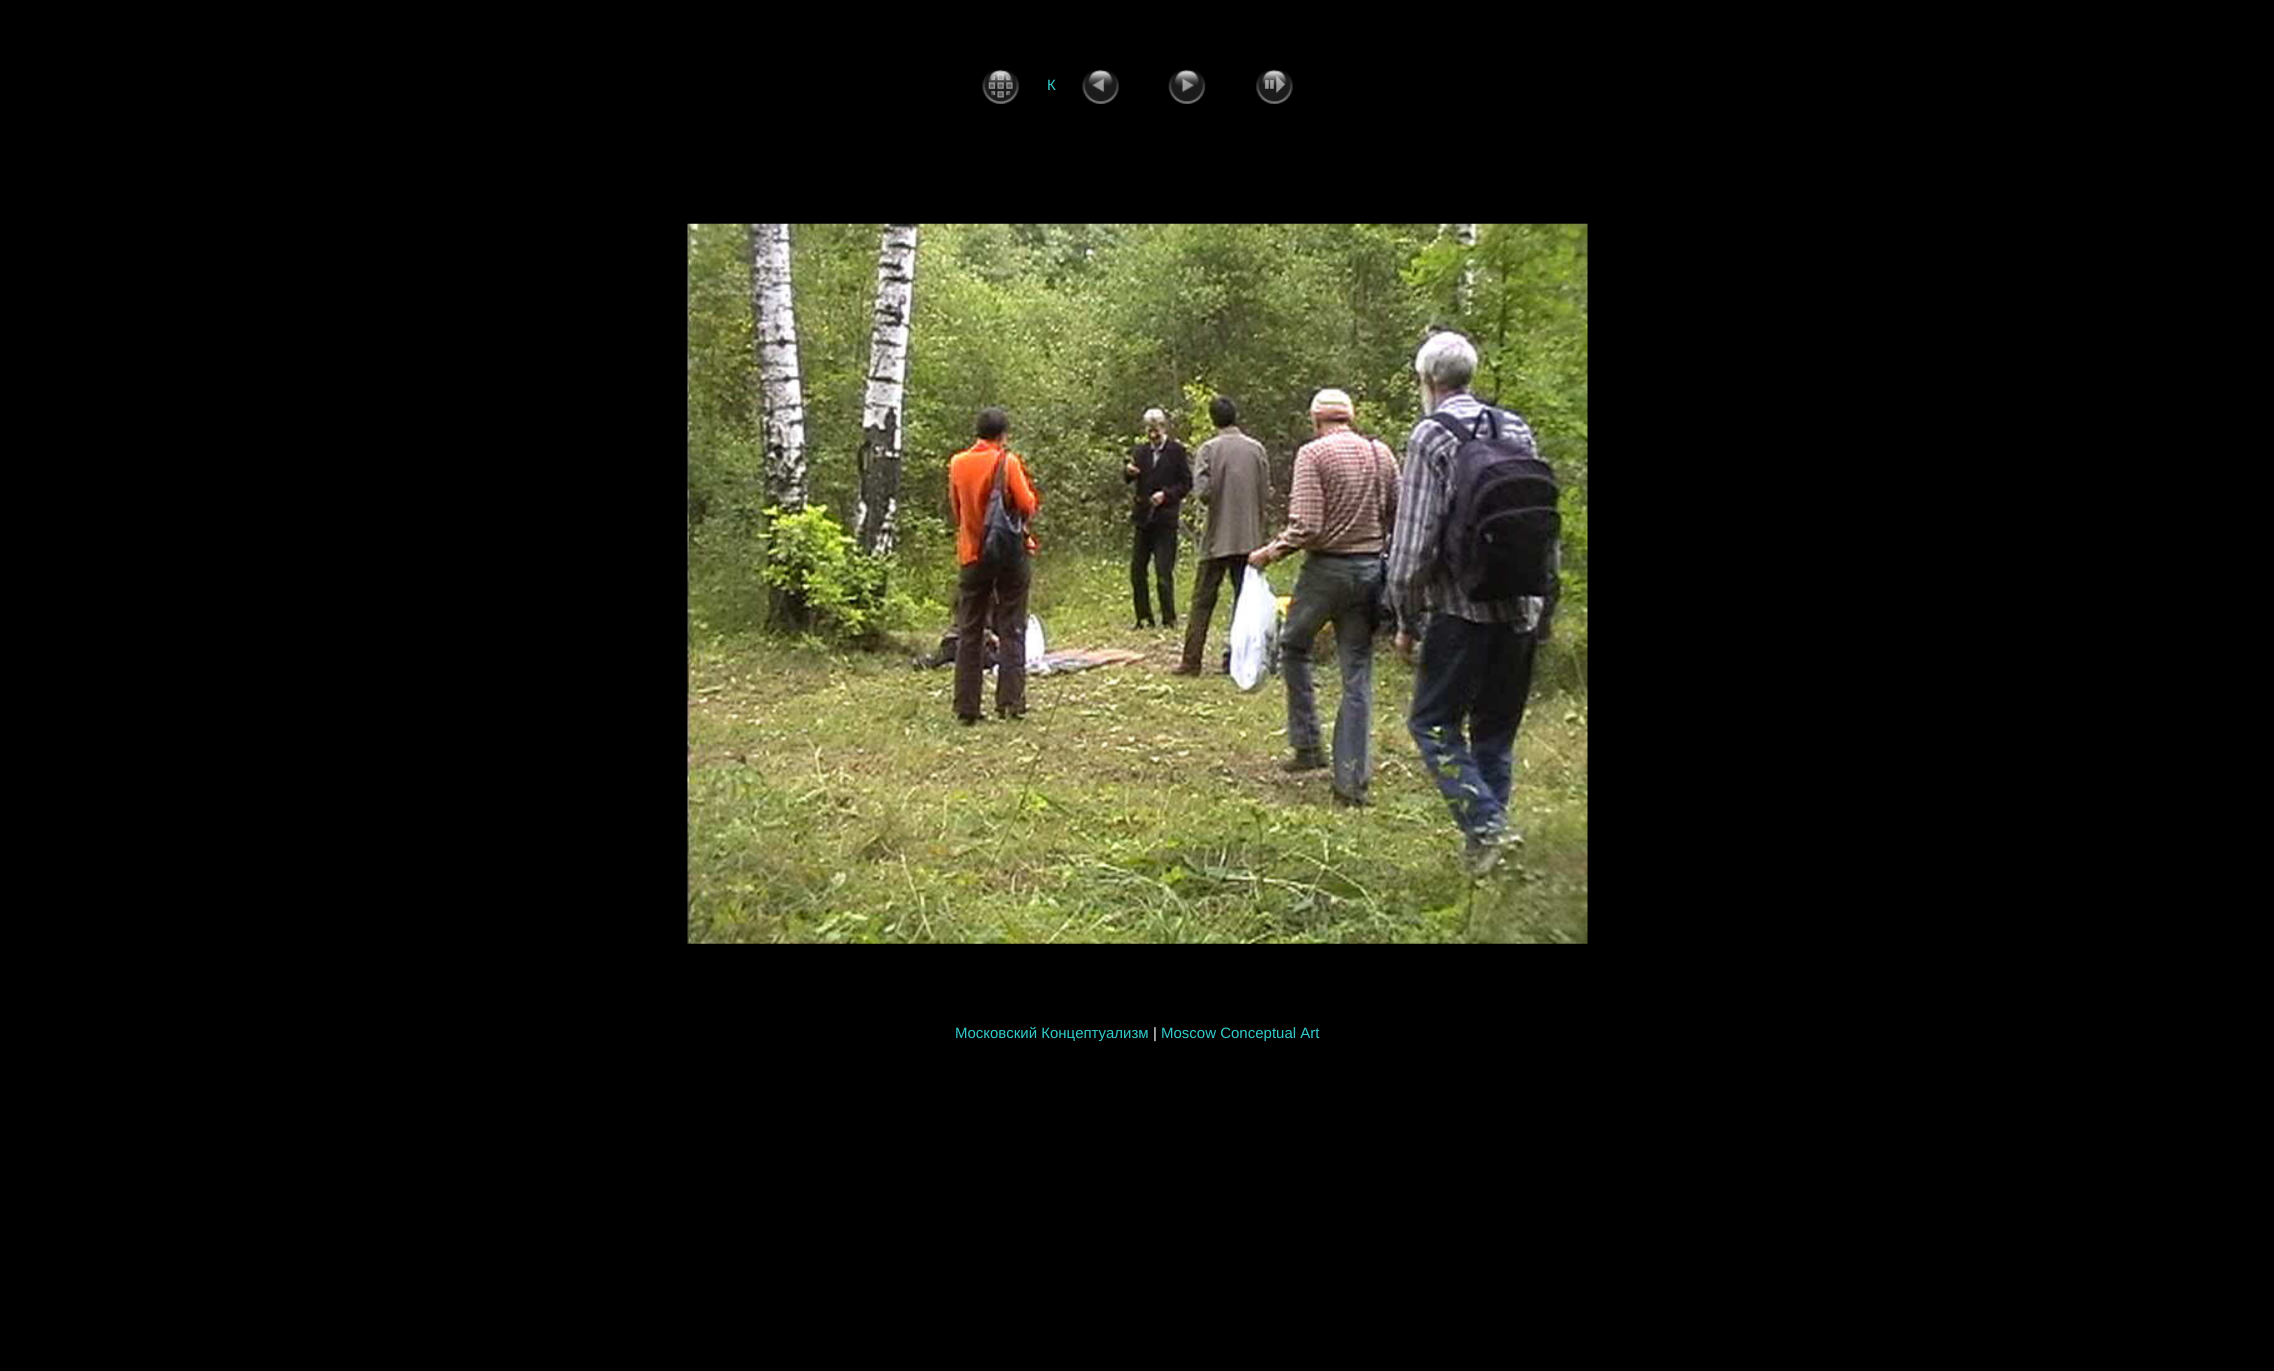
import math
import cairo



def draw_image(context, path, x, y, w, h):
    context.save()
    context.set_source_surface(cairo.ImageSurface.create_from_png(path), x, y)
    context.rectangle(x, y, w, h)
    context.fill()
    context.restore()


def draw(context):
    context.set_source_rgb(0, 0, 0)
    context.paint()
    draw_image(context, "images/1.png", 982, 69, 37, 35)
    draw_image(context, "images/2.png", 1082, 69, 37, 35)
    draw_image(context, "images/3.png", 1168, 69, 38, 35)
    draw_image(context, "images/4.png", 1256, 69, 37, 35)
    draw_image(context, "images/5.png", 687, 223, 901, 721)
    context.select_font_face("Liberation Sans")
    context.set_font_size(15)
    context.set_source_rgb(51 / 255, 204 / 255, 204 / 255)
    context.move_to(1047, 90)
    context.show_text("К")
    context.move_to(955, 1038)
    context.show_text("Московский Концептуализм")
    context.set_source_rgb(254 / 255, 254 / 255, 254 / 255)
    context.move_to(1153, 1038)
    context.show_text("|")
    context.set_source_rgb(51 / 255, 204 / 255, 204 / 255)
    context.move_to(1161, 1038)
    context.show_text("Moscow Conceptual Art")


surface = cairo.ImageSurface(cairo.Format.RGB24, 2274, 1371)
context = cairo.Context(surface)
options = cairo.FontOptions()
options.set_hint_metrics(cairo.HintMetrics.OFF)
options.set_hint_style(cairo.HintStyle.NONE)
context.set_font_options(options)
context.set_miter_limit(4)
draw(context)
surface.write_to_png("out.png")
